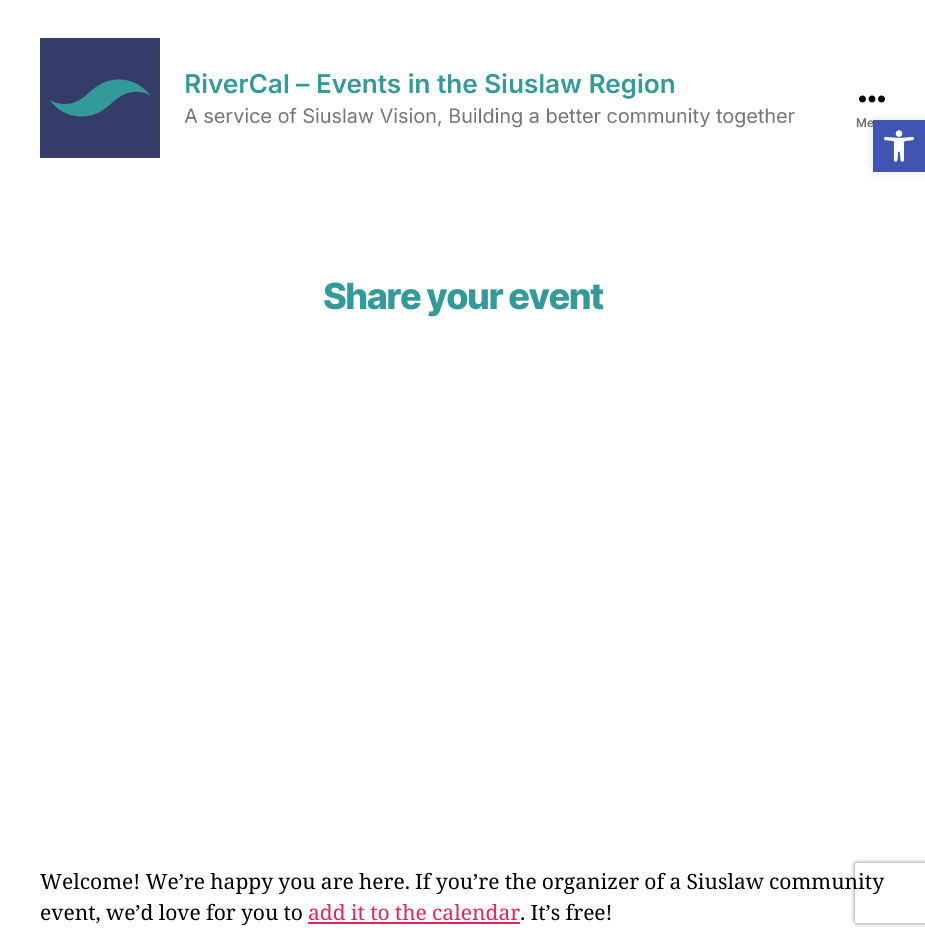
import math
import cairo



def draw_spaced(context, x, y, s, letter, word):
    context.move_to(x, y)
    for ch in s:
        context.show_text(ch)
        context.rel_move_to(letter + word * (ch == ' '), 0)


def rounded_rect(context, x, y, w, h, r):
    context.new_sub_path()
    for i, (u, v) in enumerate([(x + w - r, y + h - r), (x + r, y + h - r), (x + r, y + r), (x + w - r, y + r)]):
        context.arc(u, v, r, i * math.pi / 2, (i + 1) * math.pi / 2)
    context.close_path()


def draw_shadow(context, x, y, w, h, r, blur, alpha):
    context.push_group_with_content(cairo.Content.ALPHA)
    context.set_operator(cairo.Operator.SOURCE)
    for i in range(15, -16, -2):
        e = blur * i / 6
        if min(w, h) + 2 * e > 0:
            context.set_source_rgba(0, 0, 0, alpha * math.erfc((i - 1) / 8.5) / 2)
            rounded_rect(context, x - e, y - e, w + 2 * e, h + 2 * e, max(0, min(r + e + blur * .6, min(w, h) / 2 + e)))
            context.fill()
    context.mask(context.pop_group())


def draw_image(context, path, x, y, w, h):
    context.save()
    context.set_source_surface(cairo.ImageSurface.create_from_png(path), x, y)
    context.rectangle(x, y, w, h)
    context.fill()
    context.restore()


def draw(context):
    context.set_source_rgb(1, 1, 1)
    context.paint()
    context.set_source_rgb(0, 0, 0)
    draw_shadow(context, 873, 120, 52, 52, 0, 5, 0.1)
    draw_image(context, "images/2.png", 40, 38, 755, 120)
    draw_image(context, "images/3.png", 859, 95, 26, 8)
    context.set_source_rgb(226 / 255, 38 / 255, 88 / 255)
    context.rectangle(308, 922, 212, 2)
    context.fill()
    context.save()
    context.set_fill_rule(cairo.FillRule.EVEN_ODD)
    context.new_path()
    context.move_to(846, 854)
    context.line_to(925, 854)
    context.line_to(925, 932)
    context.line_to(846, 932)
    context.close_path()
    context.move_to(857, 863)
    context.line_to(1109, 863)
    context.curve_to(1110, 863, 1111, 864, 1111, 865)
    context.line_to(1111, 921)
    context.curve_to(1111, 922, 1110, 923, 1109, 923)
    context.line_to(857, 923)
    context.curve_to(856, 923, 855, 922, 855, 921)
    context.line_to(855, 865)
    context.curve_to(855, 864, 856, 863, 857, 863)
    context.close_path()
    context.clip()
    context.set_source_rgb(128 / 255, 128 / 255, 128 / 255)
    draw_shadow(context, 855, 863, 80, 60, 2, 2.5, 1)
    context.restore()
    context.select_font_face("Inter SemiBold")
    context.set_font_size(12)
    context.set_source_rgb(109 / 255, 109 / 255, 109 / 255)
    context.move_to(856, 127)
    context.show_text("Me")
    context.set_source_rgb(64 / 255, 84 / 255, 178 / 255)
    context.rectangle(873, 120, 52, 52)
    context.fill()
    draw_image(context, "images/1.png", 884, 130, 30, 32)
    context.select_font_face("Inter ExtraBold")
    context.set_font_size(36)
    context.set_source_rgb(51 / 255, 153 / 255, 153 / 255)
    draw_spaced(context, 323, 309, "Share your event", -1.5, 0)
    context.select_font_face("Noto Serif")
    context.set_font_size(21)
    context.set_source_rgb(0, 0, 0)
    draw_spaced(context, 40, 889, "Welcome! We’re happy you are here. If you’re the organizer of a Siuslaw community", 0, -0.25)
    draw_spaced(context, 40, 920, "event, we’d love for you to", 0, -0.25)
    context.set_source_rgb(226 / 255, 38 / 255, 88 / 255)
    draw_spaced(context, 308, 920, "add it to the calendar", 0, -0.25)
    context.set_source_rgb(0, 0, 0)
    draw_spaced(context, 520, 920, ". It’s free!", 0, -0.25)


surface = cairo.ImageSurface(cairo.Format.RGB24, 925, 937)
context = cairo.Context(surface)
options = cairo.FontOptions()
options.set_hint_metrics(cairo.HintMetrics.OFF)
options.set_hint_style(cairo.HintStyle.NONE)
context.set_font_options(options)
context.set_miter_limit(4)
draw(context)
surface.write_to_png("out.png")
